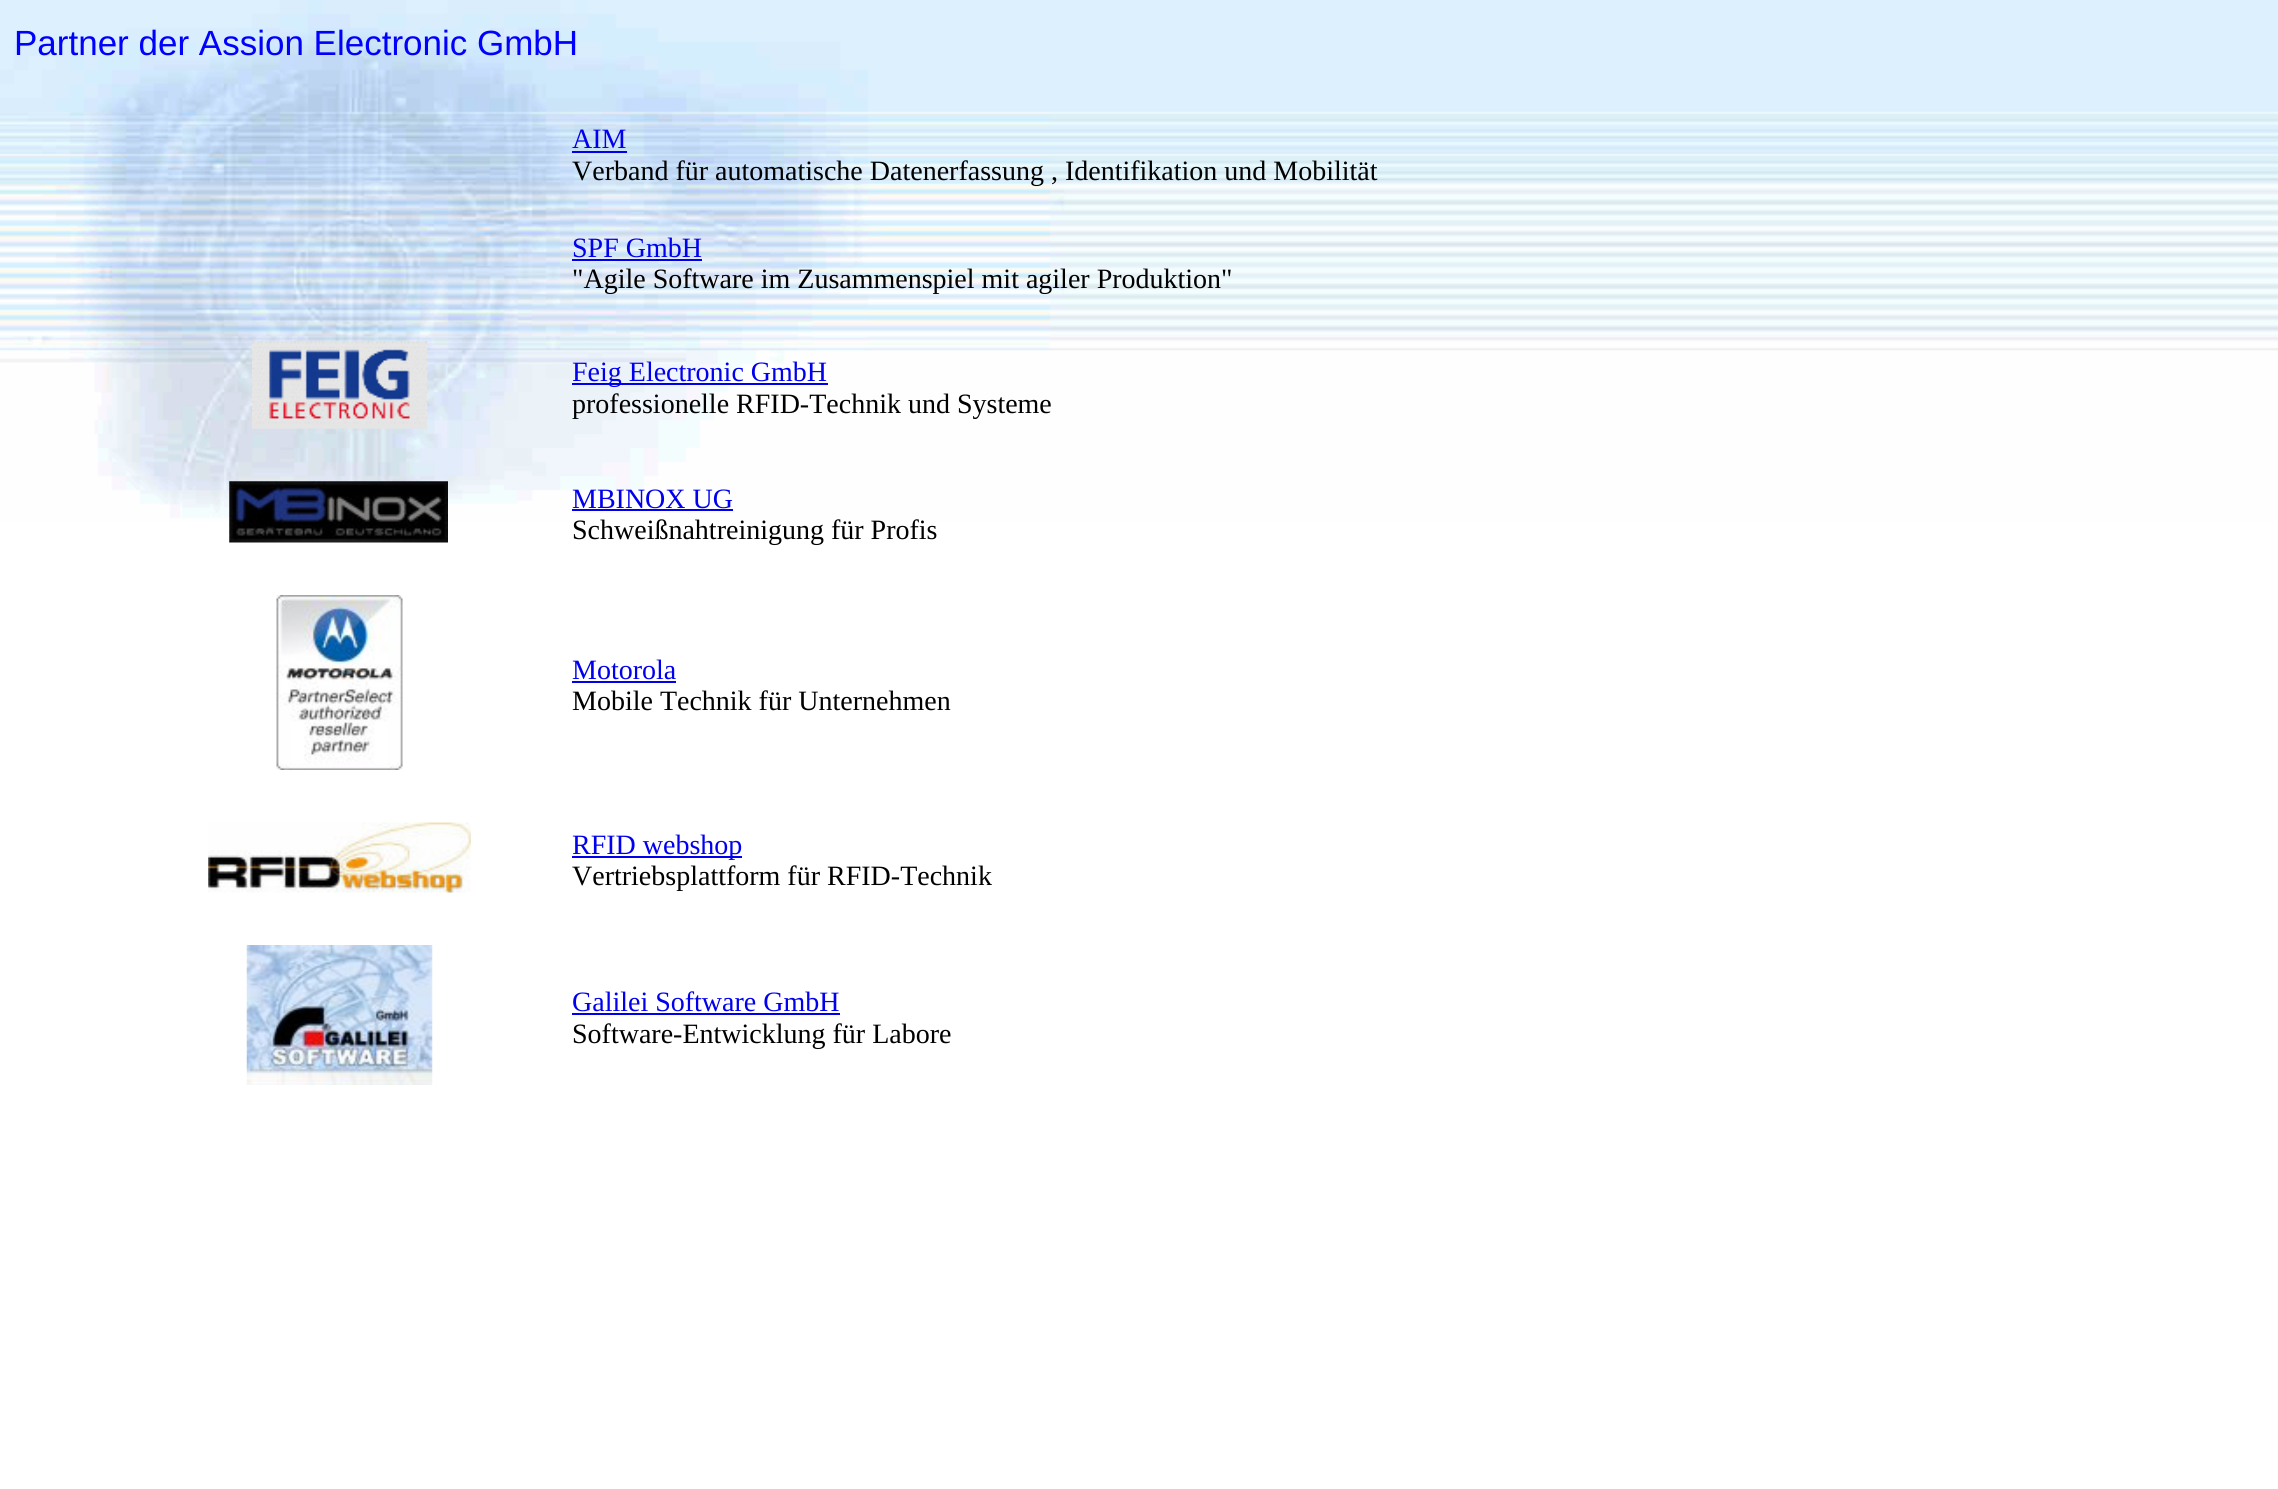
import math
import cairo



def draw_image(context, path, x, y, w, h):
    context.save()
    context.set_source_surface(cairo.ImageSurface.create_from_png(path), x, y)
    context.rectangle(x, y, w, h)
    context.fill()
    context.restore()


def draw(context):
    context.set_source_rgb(1, 1, 1)
    context.paint()
    draw_image(context, "images/1.png", 0, 0, 2278, 522)
    context.set_source_rgb(0, 0, 238 / 255)
    context.rectangle(572, 151, 55, 2)
    context.fill()
    context.rectangle(572, 259, 130, 2)
    context.fill()
    draw_image(context, "images/2.png", 252, 341, 175, 88)
    context.rectangle(572, 383, 256, 2)
    context.fill()
    draw_image(context, "images/3.png", 229, 481, 219, 62)
    context.rectangle(572, 509, 161, 2)
    context.fill()
    draw_image(context, "images/4.png", 276, 595, 127, 175)
    context.rectangle(572, 681, 104, 2)
    context.fill()
    draw_image(context, "images/5.png", 208, 822, 263, 71)
    context.rectangle(572, 856, 170, 2)
    context.fill()
    draw_image(context, "images/6.png", 246, 945, 187, 140)
    context.rectangle(572, 1013, 268, 2)
    context.fill()
    context.select_font_face("Liberation Sans")
    context.set_font_size(35)
    context.set_source_rgb(0, 0, 1)
    context.move_to(14, 55)
    context.show_text("Partner der Assion Electronic GmbH")
    context.select_font_face("Liberation Serif")
    context.set_font_size(28)
    context.set_source_rgb(0, 0, 238 / 255)
    context.move_to(572, 148)
    context.show_text("AIM")
    context.set_source_rgb(0, 0, 0)
    context.move_to(572, 180)
    context.show_text("Verband für automatische Datenerfassung , Identifikation und Mobilität")
    context.set_source_rgb(0, 0, 238 / 255)
    context.move_to(572, 257)
    context.show_text("SPF GmbH")
    context.set_source_rgb(0, 0, 0)
    context.move_to(572, 288)
    context.show_text("\"Agile Software im Zusammenspiel mit agiler Produktion\"")
    context.set_source_rgb(0, 0, 238 / 255)
    context.move_to(572, 381)
    context.show_text("Feig Electronic GmbH")
    context.set_source_rgb(0, 0, 0)
    context.move_to(572, 413)
    context.show_text("professionelle RFID-Technik und Systeme")
    context.set_source_rgb(0, 0, 238 / 255)
    context.move_to(572, 508)
    context.show_text("MBINOX UG")
    context.set_source_rgb(0, 0, 0)
    context.move_to(572, 539)
    context.show_text("Schweißnahtreinigung für Profis")
    context.set_source_rgb(0, 0, 238 / 255)
    context.move_to(572, 679)
    context.show_text("Motorola")
    context.set_source_rgb(0, 0, 0)
    context.move_to(572, 710)
    context.show_text("Mobile Technik für Unternehmen")
    context.set_source_rgb(0, 0, 238 / 255)
    context.move_to(572, 854)
    context.show_text("RFID webshop")
    context.set_source_rgb(0, 0, 0)
    context.move_to(572, 885)
    context.show_text("Vertriebsplattform für RFID-Technik")
    context.set_source_rgb(0, 0, 238 / 255)
    context.move_to(572, 1011)
    context.show_text("Galilei Software GmbH")
    context.set_source_rgb(0, 0, 0)
    context.move_to(572, 1043)
    context.show_text("Software-Entwicklung für Labore")


surface = cairo.ImageSurface(cairo.Format.RGB24, 2278, 1489)
context = cairo.Context(surface)
options = cairo.FontOptions()
options.set_hint_metrics(cairo.HintMetrics.OFF)
options.set_hint_style(cairo.HintStyle.NONE)
context.set_font_options(options)
context.set_miter_limit(4)
draw(context)
surface.write_to_png("out.png")
